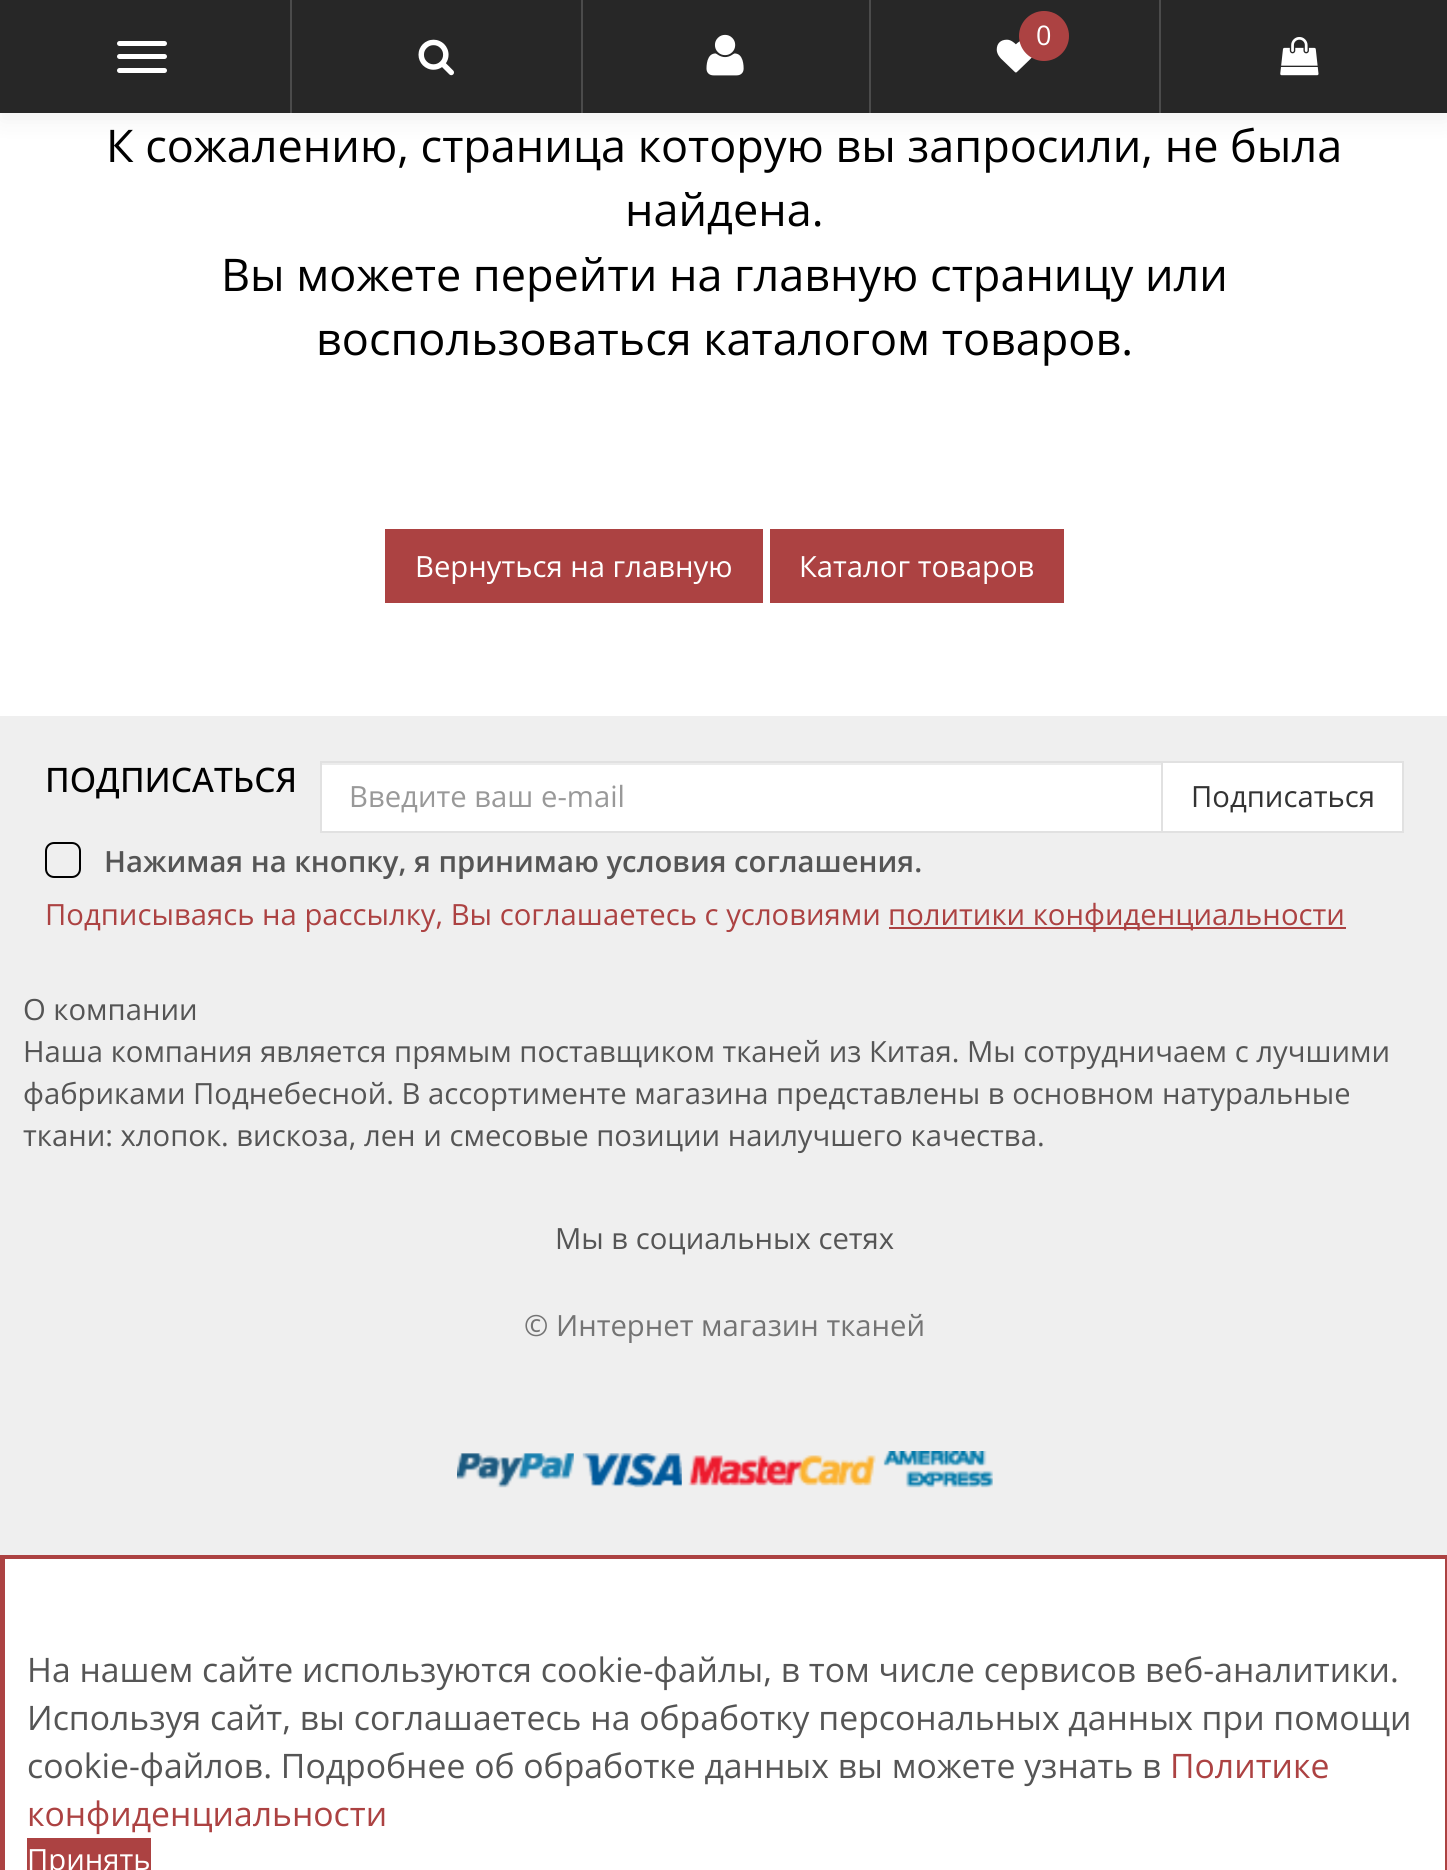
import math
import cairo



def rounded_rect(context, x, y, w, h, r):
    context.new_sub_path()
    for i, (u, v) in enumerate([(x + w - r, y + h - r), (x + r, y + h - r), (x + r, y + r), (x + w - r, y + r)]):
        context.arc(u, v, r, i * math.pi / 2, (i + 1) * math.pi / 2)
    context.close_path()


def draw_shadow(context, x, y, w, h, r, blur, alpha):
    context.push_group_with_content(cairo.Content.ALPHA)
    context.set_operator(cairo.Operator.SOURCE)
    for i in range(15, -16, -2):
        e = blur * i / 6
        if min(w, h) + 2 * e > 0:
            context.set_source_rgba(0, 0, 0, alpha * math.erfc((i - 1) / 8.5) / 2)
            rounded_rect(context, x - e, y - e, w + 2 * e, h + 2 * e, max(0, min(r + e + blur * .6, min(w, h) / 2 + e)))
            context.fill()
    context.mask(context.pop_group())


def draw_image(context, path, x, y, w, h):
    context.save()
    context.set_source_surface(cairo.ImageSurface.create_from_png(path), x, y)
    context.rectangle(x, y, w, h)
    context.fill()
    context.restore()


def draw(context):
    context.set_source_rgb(1, 1, 1)
    context.paint()
    context.set_source_rgb(0, 0, 0)
    draw_shadow(context, 0, 9, 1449, 113, 0, 11, 0.05)
    context.set_source_rgb(39 / 255, 39 / 255, 39 / 255)
    context.rectangle(0, 0, 1447, 113)
    context.fill()
    context.set_source_rgb(75 / 255, 75 / 255, 75 / 255)
    context.rectangle(290, 0, 2, 113)
    context.fill()
    draw_image(context, "images/1.png", 418, 39, 36, 37)
    context.rectangle(581, 0, 2, 113)
    context.fill()
    draw_image(context, "images/2.png", 706, 34, 38, 42)
    context.rectangle(869, 0, 2, 113)
    context.fill()
    draw_image(context, "images/3.png", 996, 39, 36, 34)
    context.set_source_rgb(172 / 255, 66 / 255, 66 / 255)
    context.arc(1044, 36, 25, 0, 2 * math.pi)
    context.fill()
    context.set_source_rgb(75 / 255, 75 / 255, 75 / 255)
    context.rectangle(1159, 0, 2, 113)
    context.fill()
    draw_image(context, "images/4.png", 1280, 37, 39, 39)
    context.set_source_rgb(1, 1, 1)
    rounded_rect(context, 117, 41, 50, 5, 2.5)
    context.fill()
    rounded_rect(context, 117, 54, 50, 5, 2.5)
    context.fill()
    rounded_rect(context, 117, 68, 50, 5, 2.5)
    context.fill()
    context.set_source_rgb(172 / 255, 66 / 255, 66 / 255)
    context.rectangle(385, 529, 378, 74)
    context.fill()
    context.rectangle(770, 529, 294, 74)
    context.fill()
    context.set_source_rgb(239 / 255, 239 / 255, 239 / 255)
    context.rectangle(0, 716, 1447, 839)
    context.fill()
    context.set_source_rgb(1, 1, 1)
    context.rectangle(322, 765, 839, 66)
    context.fill()
    context.set_source_rgb(236 / 255, 236 / 255, 236 / 255)
    context.rectangle(322, 763, 839, 2)
    context.fill()
    context.rectangle(321, 762, 841, 70)
    context.set_source_rgb(225 / 255, 225 / 255, 225 / 255)
    context.stroke()
    context.set_source_rgb(1, 1, 1)
    context.rectangle(1162, 762, 241, 70)
    context.fill_preserve()
    context.set_source_rgb(225 / 255, 225 / 255, 225 / 255)
    context.stroke()
    rounded_rect(context, 46, 843, 34, 34, 8)
    context.set_source_rgb(0, 0, 0)
    context.stroke()
    context.set_source_rgb(172 / 255, 66 / 255, 66 / 255)
    context.rectangle(889, 927, 457, 2)
    context.fill()
    draw_image(context, "images/5.png", 457, 1453, 117, 35)
    draw_image(context, "images/6.png", 582, 1453, 100, 35)
    draw_image(context, "images/7.png", 688, 1455, 188, 31)
    draw_image(context, "images/8.png", 883, 1451, 110, 37)
    context.rectangle(2.5, 1557.5, 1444, 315)
    context.set_line_width(5)
    context.stroke()
    context.set_source_rgb(1, 1, 1)
    context.rectangle(5, 1559, 1440, 311)
    context.fill()
    context.set_source_rgb(172 / 255, 66 / 255, 66 / 255)
    context.rectangle(27, 1838, 124, 32)
    context.fill()
    context.select_font_face("Open Sans")
    context.set_font_size(27)
    context.set_source_rgb(1, 1, 1)
    context.move_to(1036, 45)
    context.show_text("0")
    context.set_font_size(45)
    context.set_source_rgb(0, 0, 0)
    context.move_to(106, 162)
    context.show_text("К сожалению, страница которую вы запросили, не была")
    context.move_to(625, 226)
    context.show_text("найдена.")
    context.move_to(221, 291)
    context.show_text("Вы можете перейти на главную страницу или")
    context.move_to(316, 355)
    context.show_text("воспользоваться каталогом товаров.")
    context.set_font_size(29.25)
    context.set_source_rgb(1, 1, 1)
    context.move_to(415, 577)
    context.show_text("Вернуться на главную")
    context.move_to(799, 577)
    context.show_text("Каталог товаров")
    context.select_font_face("Open Sans Medium")
    context.set_font_size(33.75)
    context.set_source_rgb(0, 0, 0)
    context.move_to(45, 792)
    context.show_text("ПОДПИСАТЬСЯ")
    context.select_font_face("Open Sans")
    context.set_font_size(29.25)
    context.set_source_rgb(153 / 255, 153 / 255, 153 / 255)
    context.move_to(349, 807)
    context.show_text("Введите ваш e-mail")
    context.set_source_rgb(51 / 255, 51 / 255, 51 / 255)
    context.move_to(1191, 807)
    context.show_text("Подписаться")
    context.select_font_face("Open Sans SemiBold")
    context.set_source_rgb(85 / 255, 85 / 255, 85 / 255)
    context.move_to(104, 872)
    context.show_text("Нажимая на кнопку, я принимаю условия соглашения.")
    context.select_font_face("Open Sans")
    context.set_source_rgb(172 / 255, 66 / 255, 66 / 255)
    context.move_to(45, 925)
    context.show_text("Подписываясь на рассылку, Вы соглашаетесь с условиями")
    context.move_to(888, 925)
    context.show_text("политики конфиденциальности")
    context.set_source_rgb(85 / 255, 85 / 255, 85 / 255)
    context.move_to(23, 1020)
    context.show_text("О компании")
    context.move_to(23, 1062)
    context.show_text("Наша компания является прямым поставщиком тканей из Китая. Мы сотрудничаем с лучшими")
    context.move_to(23, 1104)
    context.show_text("фабриками Поднебесной. В ассортименте магазина представлены в основном натуральные")
    context.move_to(23, 1146)
    context.show_text("ткани: хлопок. вискоза, лен и смесовые позиции наилучшего качества.")
    context.move_to(555, 1249)
    context.show_text("Мы в социальных сетях")
    context.set_source_rgb(116 / 255, 116 / 255, 116 / 255)
    context.move_to(524, 1336)
    context.show_text("© Интернет магазин тканей")
    context.set_font_size(33.75)
    context.set_source_rgb(85 / 255, 85 / 255, 85 / 255)
    context.move_to(27, 1682)
    context.show_text("На нашем сайте используются cookie-файлы, в том числе сервисов веб-аналитики.")
    context.move_to(27, 1730)
    context.show_text("Используя сайт, вы соглашаетесь на обработку персональных данных при помощи")
    context.move_to(27, 1778)
    context.show_text("cookie-файлов. Подробнее об обработке данных вы можете узнать в")
    context.set_source_rgb(172 / 255, 66 / 255, 66 / 255)
    context.move_to(1170, 1778)
    context.show_text("Политике")
    context.move_to(27, 1826)
    context.show_text("конфиденциальности")
    context.set_font_size(29.25)
    context.set_source_rgb(1, 1, 1)
    context.move_to(27, 1870)
    context.show_text("Принять")


surface = cairo.ImageSurface(cairo.Format.RGB24, 1447, 1870)
context = cairo.Context(surface)
options = cairo.FontOptions()
options.set_hint_metrics(cairo.HintMetrics.OFF)
options.set_hint_style(cairo.HintStyle.NONE)
context.set_font_options(options)
context.set_miter_limit(4)
draw(context)
surface.write_to_png("out.png")
